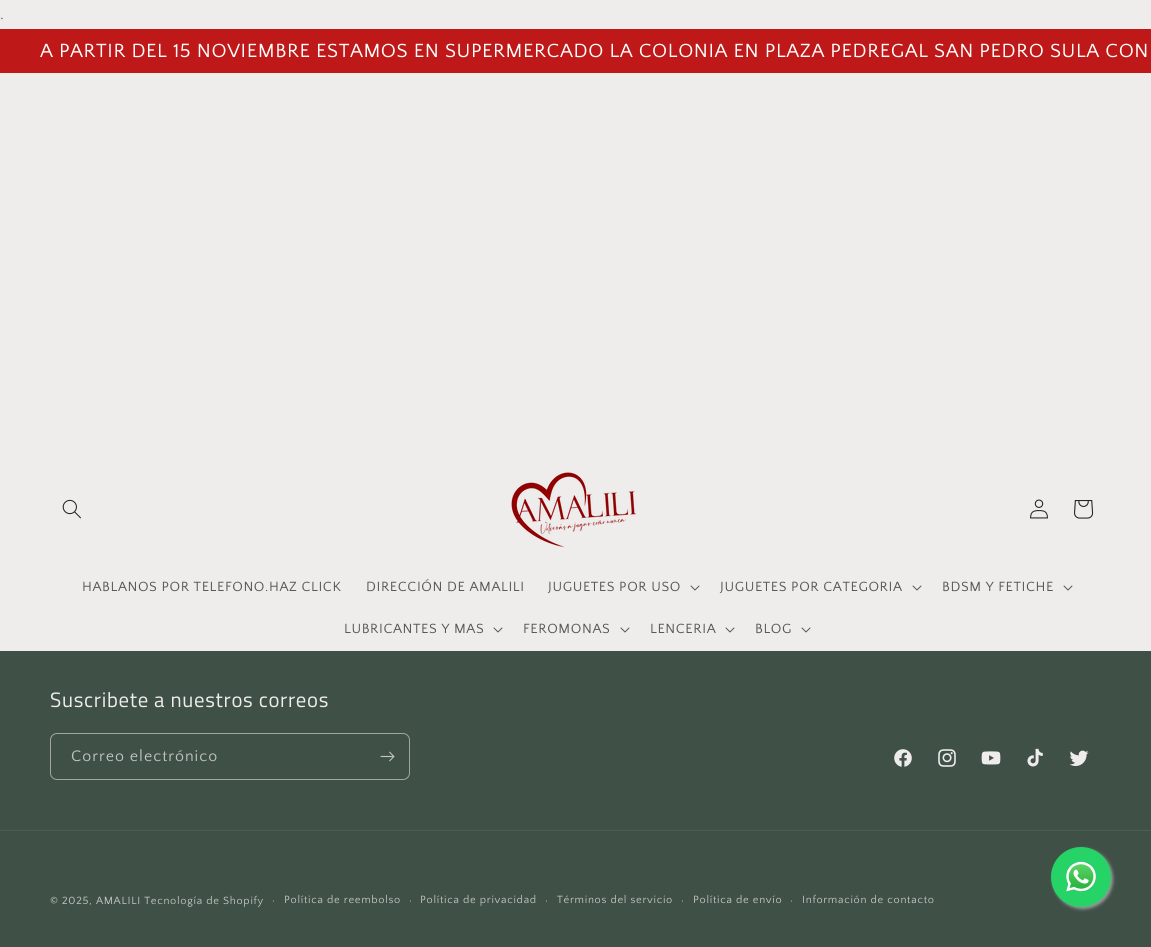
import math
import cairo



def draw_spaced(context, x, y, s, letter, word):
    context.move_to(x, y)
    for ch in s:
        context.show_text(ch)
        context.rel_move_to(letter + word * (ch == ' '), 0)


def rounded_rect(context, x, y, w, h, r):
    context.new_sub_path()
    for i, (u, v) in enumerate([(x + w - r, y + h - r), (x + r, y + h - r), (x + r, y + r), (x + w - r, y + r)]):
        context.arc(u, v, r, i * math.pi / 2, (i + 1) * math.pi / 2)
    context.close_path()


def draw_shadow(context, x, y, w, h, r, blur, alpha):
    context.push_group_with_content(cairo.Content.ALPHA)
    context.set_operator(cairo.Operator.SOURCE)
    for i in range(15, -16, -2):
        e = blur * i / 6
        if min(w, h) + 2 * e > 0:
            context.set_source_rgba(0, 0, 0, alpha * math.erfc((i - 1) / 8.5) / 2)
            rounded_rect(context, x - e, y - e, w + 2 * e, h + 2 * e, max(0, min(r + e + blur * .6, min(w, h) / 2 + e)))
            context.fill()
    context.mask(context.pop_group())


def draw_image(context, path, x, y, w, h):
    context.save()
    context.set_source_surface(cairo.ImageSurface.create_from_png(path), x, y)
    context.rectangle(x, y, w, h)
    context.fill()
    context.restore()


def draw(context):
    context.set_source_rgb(239 / 255, 236 / 255, 236 / 255)
    context.paint()
    context.set_source_rgb(190 / 255, 24 / 255, 24 / 255)
    context.rectangle(0, 29, 1151, 44)
    context.fill()
    draw_image(context, "images/1.png", 62, 499, 19, 20)
    draw_image(context, "images/2.png", 511, 472, 126, 76)
    draw_image(context, "images/3.png", 1030, 499, 18, 20)
    draw_image(context, "images/4.png", 1074, 500, 20, 19)
    draw_image(context, "images/5.png", 690, 585, 10, 6)
    draw_image(context, "images/5.png", 912, 585, 10, 6)
    draw_image(context, "images/5.png", 1063, 585, 10, 6)
    draw_image(context, "images/5.png", 493, 627, 10, 6)
    draw_image(context, "images/5.png", 620, 627, 10, 6)
    draw_image(context, "images/5.png", 725, 627, 10, 6)
    draw_image(context, "images/5.png", 801, 627, 10, 6)
    context.set_source_rgb(63 / 255, 81 / 255, 71 / 255)
    context.rectangle(0, 651, 1151, 296)
    context.fill()
    rounded_rect(context, 50.5, 733.5, 359, 46, 6.5)
    context.set_source_rgb(160 / 255, 166 / 255, 162 / 255)
    context.set_line_width(1)
    context.stroke()
    draw_image(context, "images/6.png", 380, 751, 15, 11)
    draw_image(context, "images/7.png", 894, 749, 18, 18)
    draw_image(context, "images/8.png", 938, 749, 18, 18)
    draw_image(context, "images/9.png", 981, 751, 20, 14)
    draw_image(context, "images/10.png", 1027, 748, 16, 19)
    draw_image(context, "images/11.png", 1069, 750, 20, 16)
    context.set_source_rgb(77 / 255, 93 / 255, 84 / 255)
    context.rectangle(0, 830, 1151, 1)
    context.fill()
    context.set_source_rgb(153 / 255, 153 / 255, 153 / 255)
    draw_shadow(context, 1053, 849, 60, 60, 30, 1.5, 1)
    context.set_source_rgb(37 / 255, 211 / 255, 102 / 255)
    context.arc(1081, 877, 30, 0, 2 * math.pi)
    context.fill()
    draw_image(context, "images/12.png", 1066, 861, 30, 31)
    context.select_font_face("Quattrocento Sans")
    context.set_font_size(16)
    context.set_source_rgb(88 / 255, 87 / 255, 87 / 255)
    draw_spaced(context, 0, 19, ".", 0.6, 0)
    context.set_font_size(20)
    context.set_source_rgb(1, 1, 1)
    draw_spaced(context, 40, 57, "A PARTIR DEL 15 NOVIEMBRE ESTAMOS EN SUPERMERCADO LA COLONIA EN PLAZA PEDREGAL SAN PEDRO SULA CON", 0.6, 0)
    context.set_font_size(14)
    context.set_source_rgb(88 / 255, 87 / 255, 87 / 255)
    draw_spaced(context, 82, 591, "HABLANOS POR TELEFONO.HAZ CLICK", 0.6, 0)
    draw_spaced(context, 366, 591, "DIRECCIÓN DE AMALILI", 0.6, 0)
    draw_spaced(context, 548, 591, "JUGUETES POR USO", 0.6, 0)
    draw_spaced(context, 720, 591, "JUGUETES POR CATEGORIA", 0.6, 0)
    draw_spaced(context, 942, 591, "BDSM Y FETICHE", 0.6, 0)
    draw_spaced(context, 344, 633, "LUBRICANTES Y MAS", 0.6, 0)
    draw_spaced(context, 523, 633, "FEROMONAS", 0.6, 0)
    draw_spaced(context, 650, 633, "LENCERIA", 0.6, 0)
    draw_spaced(context, 755, 633, "BLOG", 0.6, 0)
    context.select_font_face("Titillium Web")
    context.set_font_size(20.75)
    context.set_source_rgb(239 / 255, 236 / 255, 236 / 255)
    draw_spaced(context, 50, 707, "Suscribete a nuestros correos", 0.7, 0)
    context.select_font_face("Quattrocento Sans")
    context.set_font_size(16)
    context.set_source_rgb(195 / 255, 197 / 255, 195 / 255)
    draw_spaced(context, 71, 761, "Correo electrónico", 1, 0)
    context.set_font_size(11)
    draw_spaced(context, 50, 904, "© 2025, AMALILI Tecnología de Shopify", 0.7, 0)
    context.set_font_size(12)
    draw_spaced(context, 272, 904, "·", 0.7, 0)
    context.set_font_size(11)
    draw_spaced(context, 284, 903, "Política de reembolso", 0.7, 0)
    context.set_font_size(12)
    draw_spaced(context, 409, 904, "·", 0.7, 0)
    context.set_font_size(11)
    draw_spaced(context, 420, 903, "Política de privacidad", 0.7, 0)
    context.set_font_size(12)
    draw_spaced(context, 545, 904, "·", 0.7, 0)
    context.set_font_size(11)
    draw_spaced(context, 557, 903, "Términos del servicio", 0.7, 0)
    context.set_font_size(12)
    draw_spaced(context, 681, 904, "·", 0.7, 0)
    context.set_font_size(11)
    draw_spaced(context, 693, 903, "Política de envío", 0.7, 0)
    context.set_font_size(12)
    draw_spaced(context, 790, 904, "·", 0.7, 0)
    context.set_font_size(11)
    draw_spaced(context, 802, 903, "Información de contacto", 0.7, 0)


surface = cairo.ImageSurface(cairo.Format.RGB24, 1151, 947)
context = cairo.Context(surface)
options = cairo.FontOptions()
options.set_hint_metrics(cairo.HintMetrics.OFF)
options.set_hint_style(cairo.HintStyle.NONE)
context.set_font_options(options)
context.set_miter_limit(4)
draw(context)
surface.write_to_png("out.png")
